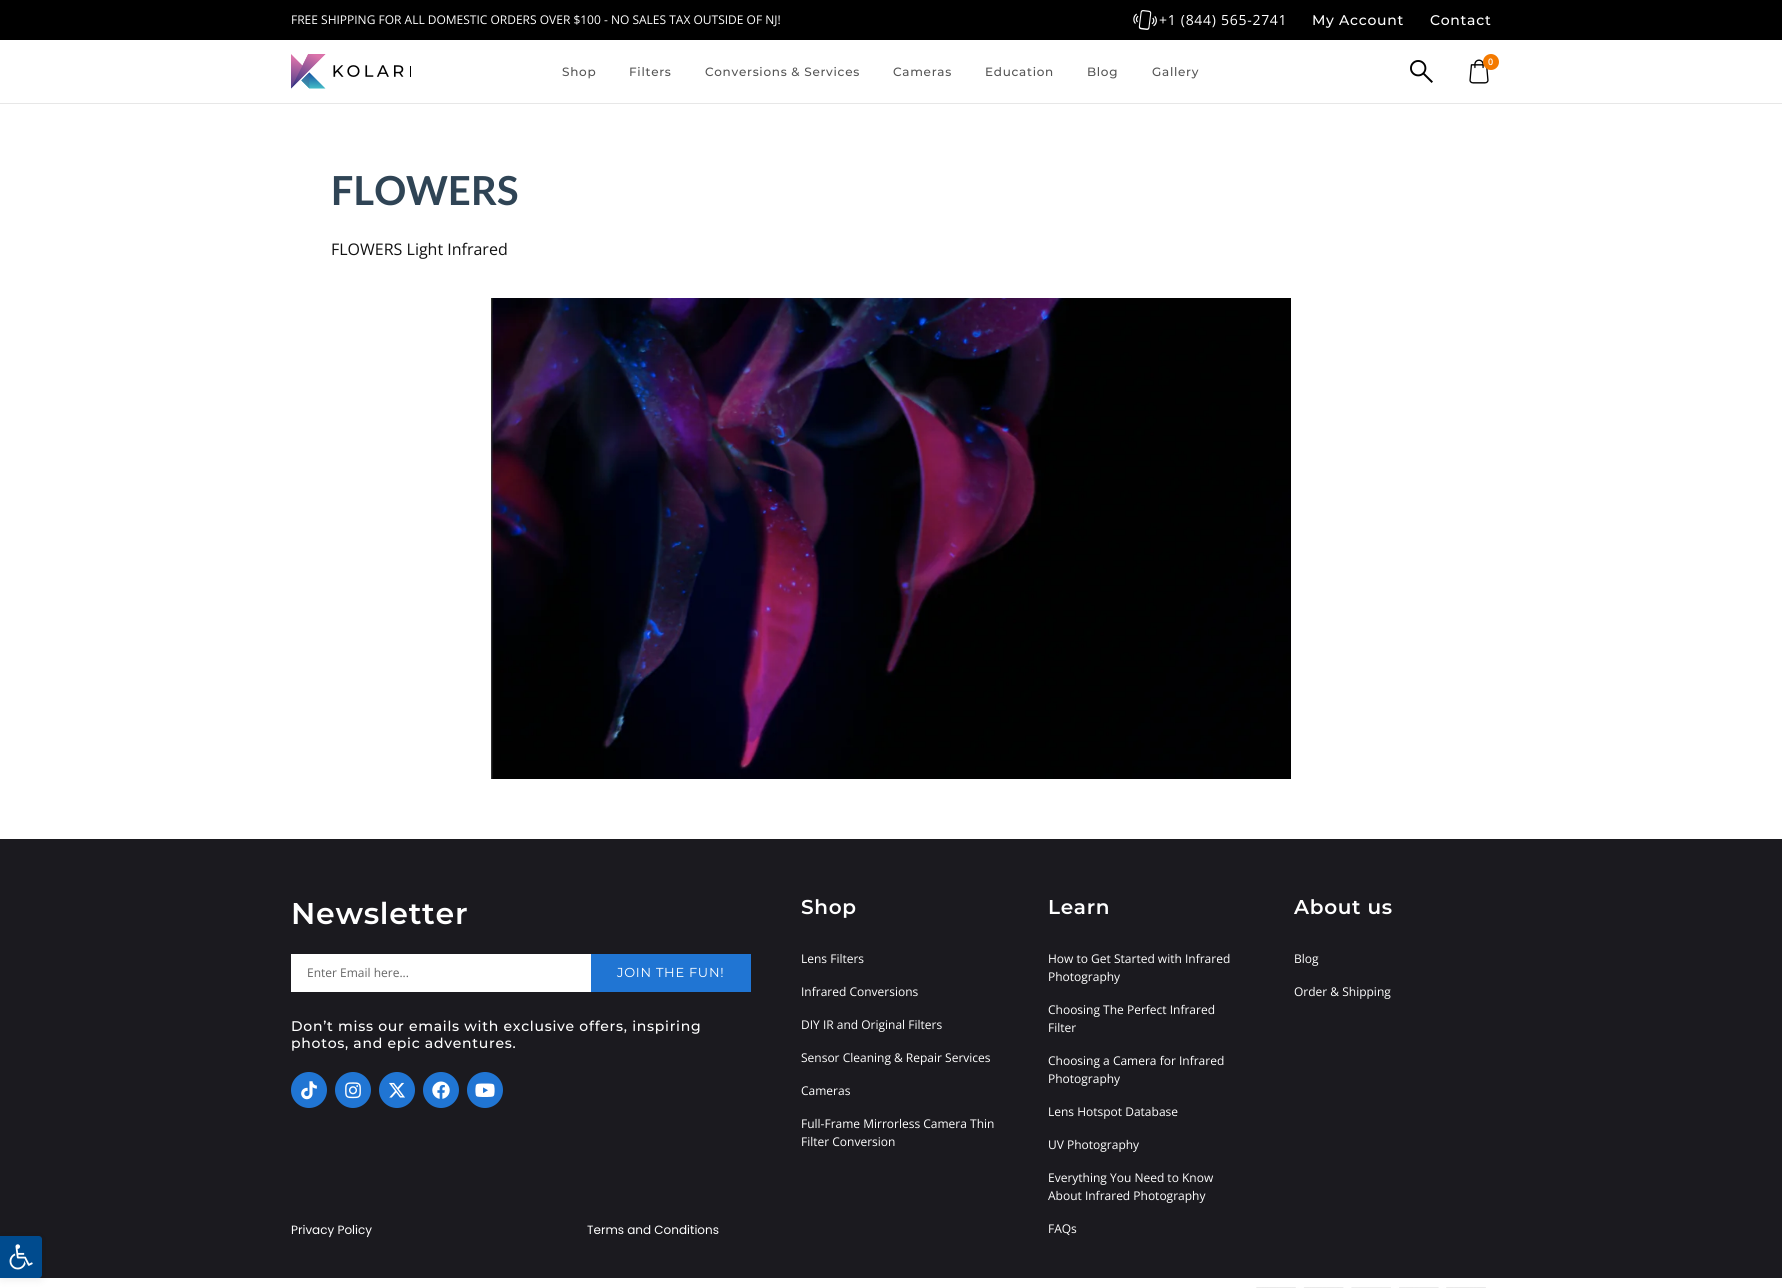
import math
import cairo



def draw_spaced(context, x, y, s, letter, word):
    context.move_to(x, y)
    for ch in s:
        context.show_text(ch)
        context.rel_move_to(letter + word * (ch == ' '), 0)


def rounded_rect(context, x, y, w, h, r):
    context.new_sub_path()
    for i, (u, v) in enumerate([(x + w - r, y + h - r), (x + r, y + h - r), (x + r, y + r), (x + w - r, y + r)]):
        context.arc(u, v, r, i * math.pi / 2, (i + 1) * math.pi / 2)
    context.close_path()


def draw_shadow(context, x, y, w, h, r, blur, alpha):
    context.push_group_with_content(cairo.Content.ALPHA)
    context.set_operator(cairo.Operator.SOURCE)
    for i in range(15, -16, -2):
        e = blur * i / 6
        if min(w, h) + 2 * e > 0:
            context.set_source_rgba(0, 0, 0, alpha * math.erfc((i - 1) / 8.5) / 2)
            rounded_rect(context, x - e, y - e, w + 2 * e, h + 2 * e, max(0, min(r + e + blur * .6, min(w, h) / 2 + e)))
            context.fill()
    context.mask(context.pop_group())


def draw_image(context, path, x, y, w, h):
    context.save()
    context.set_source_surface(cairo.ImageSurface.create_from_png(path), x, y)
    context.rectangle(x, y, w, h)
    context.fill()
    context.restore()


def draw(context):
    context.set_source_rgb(1, 1, 1)
    context.paint()
    context.set_source_rgb(0, 0, 0)
    context.rectangle(0, 0, 1782, 40)
    context.fill()
    draw_image(context, "images/1.png", 1133, 10, 24, 20)
    context.set_source_rgb(231 / 255, 231 / 255, 231 / 255)
    context.rectangle(0, 103, 1782, 1)
    context.fill()
    draw_image(context, "images/2.png", 291, 54, 120, 35)
    draw_image(context, "images/3.png", 1410, 60, 23, 23)
    draw_image(context, "images/4.png", 1469, 59, 20, 25)
    context.set_source_rgb(244 / 255, 122 / 255, 0)
    context.arc(1491, 62, 8, 0, 2 * math.pi)
    context.fill()
    draw_image(context, "images/5.png", 491, 298, 800, 481)
    context.set_source_rgb(27 / 255, 26 / 255, 31 / 255)
    context.rectangle(0, 839, 1782, 439)
    context.fill()
    context.set_source_rgb(1, 1, 1)
    context.rectangle(291, 954, 300, 38)
    context.fill()
    context.set_source_rgb(32 / 255, 117 / 255, 211 / 255)
    context.rectangle(591, 954, 160, 38)
    context.fill()
    context.arc(309, 1090, 18, 0, 2 * math.pi)
    context.fill()
    draw_image(context, "images/6.png", 301, 1081, 16, 19)
    context.arc(353, 1090, 18, 0, 2 * math.pi)
    context.fill()
    draw_image(context, "images/7.png", 345, 1082, 16, 17)
    context.arc(397, 1090, 18, 0, 2 * math.pi)
    context.fill()
    draw_image(context, "images/8.png", 389, 1082, 16, 16)
    context.arc(441, 1090, 18, 0, 2 * math.pi)
    context.fill()
    draw_image(context, "images/9.png", 432, 1081, 18, 18)
    context.arc(485, 1090, 18, 0, 2 * math.pi)
    context.fill()
    draw_image(context, "images/10.png", 475, 1083, 20, 14)
    draw_image(context, "images/11.png", 1256, 1287, 230, 1)
    context.set_source_rgb(0, 0, 0)
    draw_shadow(context, 0, 1236, 42, 42, 3, 5, 0.1)
    context.set_source_rgb(0, 75 / 255, 142 / 255)
    context.new_path()
    context.move_to(0, 1236)
    context.line_to(39, 1236)
    context.curve_to(40.5, 1236, 42, 1237.5, 42, 1239)
    context.line_to(42, 1275)
    context.curve_to(42, 1276.5, 40.5, 1278, 39, 1278)
    context.line_to(0, 1278)
    context.close_path()
    context.fill()
    draw_image(context, "images/12.png", 9, 1244, 24, 26)
    context.select_font_face("Open Sans")
    context.set_font_size(12)
    context.set_source_rgb(1, 1, 1)
    context.move_to(291, 24)
    context.show_text("FREE SHIPPING FOR ALL DOMESTIC ORDERS OVER $100 - NO SALES TAX OUTSIDE OF NJ!")
    context.set_font_size(14)
    draw_spaced(context, 1159, 25, "+1 (844) 565-2741", 0.72, 0)
    context.select_font_face("Montserrat Medium")
    draw_spaced(context, 1312, 25, "My Account", 0.72, 0)
    draw_spaced(context, 1430, 25, "Contact", 0.72, 0)
    context.set_font_size(12)
    context.set_source_rgb(85 / 255, 85 / 255, 85 / 255)
    draw_spaced(context, 562, 76, "Shop", 0.72, 0)
    draw_spaced(context, 629, 76, "Filters", 0.72, 0)
    draw_spaced(context, 705, 76, "Conversions & Services", 0.72, 0)
    draw_spaced(context, 893, 76, "Cameras", 0.72, 0)
    draw_spaced(context, 985, 76, "Education", 0.72, 0)
    draw_spaced(context, 1087, 76, "Blog", 0.72, 0)
    draw_spaced(context, 1152, 76, "Gallery", 0.72, 0)
    context.select_font_face("Open Sans SemiBold")
    context.set_font_size(9)
    context.set_source_rgb(1, 1, 1)
    context.move_to(1488, 65)
    context.show_text("0")
    context.select_font_face("Lato", cairo.FontSlant.NORMAL, cairo.FontWeight.BOLD)
    context.set_font_size(40)
    context.set_source_rgb(47 / 255, 68 / 255, 85 / 255)
    context.move_to(331, 205)
    context.show_text("FLOWERS")
    context.select_font_face("Open Sans")
    context.set_font_size(16)
    context.set_source_rgb(18 / 255, 18 / 255, 18 / 255)
    context.move_to(331, 255)
    context.show_text("FLOWERS Light Infrared")
    context.select_font_face("Montserrat SemiBold")
    context.set_font_size(30)
    context.set_source_rgb(1, 1, 1)
    draw_spaced(context, 291, 924, "Newsletter", 0.72, 0)
    context.select_font_face("Open Sans")
    context.set_font_size(12)
    context.set_source_rgb(102 / 255, 102 / 255, 102 / 255)
    context.move_to(307, 977)
    context.show_text("Enter Email here...")
    context.select_font_face("Montserrat")
    context.set_font_size(13)
    context.set_source_rgb(1, 1, 1)
    draw_spaced(context, 617, 977, "JOIN THE FUN!", 0.72, 0)
    context.select_font_face("Montserrat Medium")
    context.set_font_size(14)
    draw_spaced(context, 291, 1031, "Don’t miss our emails with exclusive offers, inspiring", 0.72, 0)
    draw_spaced(context, 291, 1048, "photos, and epic adventures.", 0.72, 0)
    context.select_font_face("Poppins")
    context.set_font_size(12)
    context.move_to(291, 1234)
    context.show_text("Privacy Policy")
    context.move_to(587, 1234)
    context.show_text("Terms and Conditions")
    context.select_font_face("Montserrat SemiBold")
    context.set_font_size(20)
    draw_spaced(context, 801, 914, "Shop", 0.72, 0)
    context.select_font_face("Open Sans")
    context.set_font_size(12)
    context.move_to(801, 963)
    context.show_text("Lens Filters")
    context.move_to(801, 996)
    context.show_text("Infrared Conversions")
    context.move_to(801, 1029)
    context.show_text("DIY IR and Original Filters")
    context.move_to(801, 1062)
    context.show_text("Sensor Cleaning & Repair Services")
    context.move_to(801, 1095)
    context.show_text("Cameras")
    context.move_to(801, 1128)
    context.show_text("Full-Frame Mirrorless Camera Thin")
    context.move_to(801, 1146)
    context.show_text("Filter Conversion")
    context.select_font_face("Montserrat SemiBold")
    context.set_font_size(20)
    draw_spaced(context, 1048, 914, "Learn", 0.72, 0)
    context.select_font_face("Open Sans")
    context.set_font_size(12)
    context.move_to(1048, 963)
    context.show_text("How to Get Started with Infrared")
    context.move_to(1048, 981)
    context.show_text("Photography")
    context.move_to(1048, 1014)
    context.show_text("Choosing The Perfect Infrared")
    context.move_to(1048, 1032)
    context.show_text("Filter")
    context.move_to(1048, 1065)
    context.show_text("Choosing a Camera for Infrared")
    context.move_to(1048, 1083)
    context.show_text("Photography")
    context.move_to(1048, 1116)
    context.show_text("Lens Hotspot Database")
    context.move_to(1048, 1149)
    context.show_text("UV Photography")
    context.move_to(1048, 1182)
    context.show_text("Everything You Need to Know")
    context.move_to(1048, 1200)
    context.show_text("About Infrared Photography")
    context.move_to(1048, 1233)
    context.show_text("FAQs")
    context.select_font_face("Montserrat SemiBold")
    context.set_font_size(20)
    draw_spaced(context, 1294, 914, "About us", 0.72, 0)
    context.select_font_face("Open Sans")
    context.set_font_size(12)
    context.move_to(1294, 963)
    context.show_text("Blog")
    context.move_to(1294, 996)
    context.show_text("Order & Shipping")


surface = cairo.ImageSurface(cairo.Format.RGB24, 1782, 1288)
context = cairo.Context(surface)
options = cairo.FontOptions()
options.set_hint_metrics(cairo.HintMetrics.OFF)
options.set_hint_style(cairo.HintStyle.NONE)
context.set_font_options(options)
context.set_miter_limit(4)
draw(context)
surface.write_to_png("out.png")
